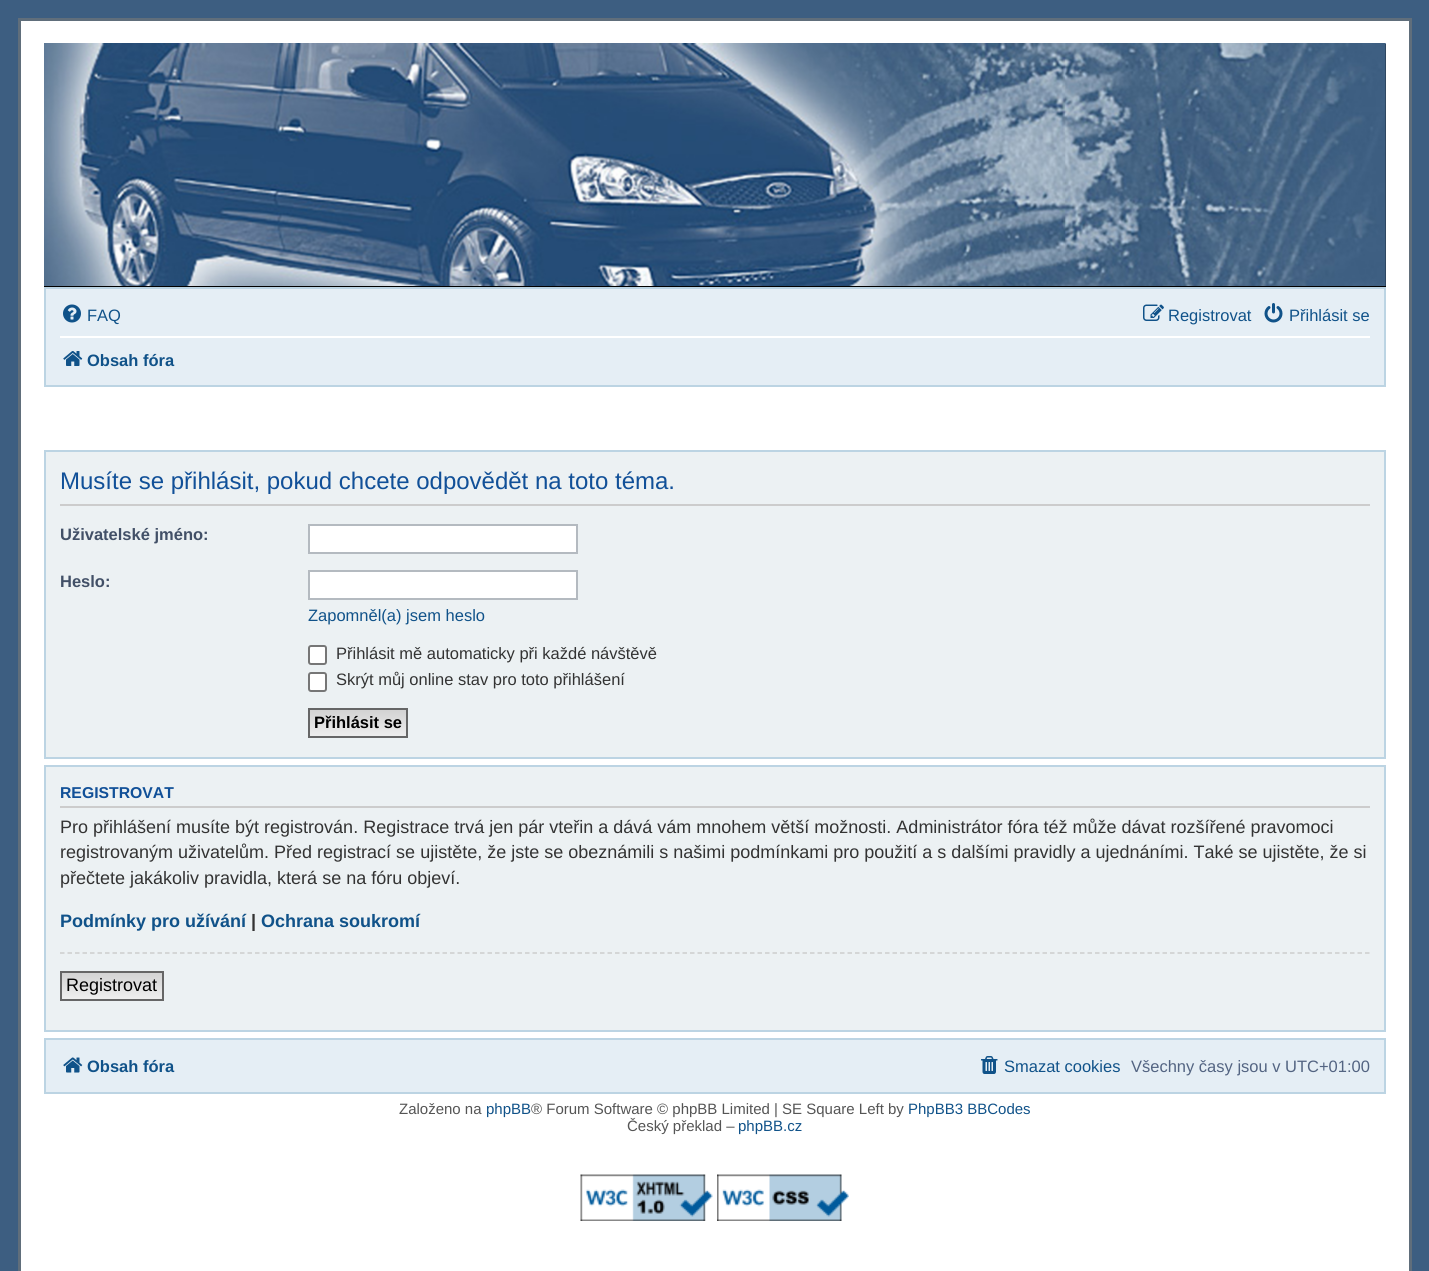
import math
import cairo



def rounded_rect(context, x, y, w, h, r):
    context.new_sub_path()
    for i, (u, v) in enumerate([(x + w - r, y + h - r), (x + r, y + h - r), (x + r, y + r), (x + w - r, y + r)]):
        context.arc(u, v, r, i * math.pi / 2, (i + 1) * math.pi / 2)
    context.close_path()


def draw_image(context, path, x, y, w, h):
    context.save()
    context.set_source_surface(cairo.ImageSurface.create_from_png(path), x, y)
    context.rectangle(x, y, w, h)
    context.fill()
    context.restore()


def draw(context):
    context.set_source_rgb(61 / 255, 94 / 255, 129 / 255)
    context.paint()
    context.set_source_rgb(1, 1, 1)
    context.rectangle(19.5, 19.5, 1391, 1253)
    context.fill_preserve()
    context.set_source_rgb(96 / 255, 110 / 255, 123 / 255)
    context.set_line_width(3)
    context.stroke()
    context.set_source_rgb(0, 0, 0)
    context.rectangle(44, 44, 1342, 243)
    context.fill()
    draw_image(context, "images/1.png", 44, 43, 1342, 243)
    context.set_source_rgb(229 / 255, 238 / 255, 245 / 255)
    context.rectangle(45, 288, 1340, 98)
    context.fill_preserve()
    context.set_source_rgb(188 / 255, 212 / 255, 227 / 255)
    context.set_line_width(2)
    context.stroke()
    draw_image(context, "images/2.png", 63, 304, 18, 19)
    draw_image(context, "images/3.png", 1143, 304, 21, 17)
    draw_image(context, "images/4.png", 1264, 303, 19, 20)
    context.set_source_rgb(1, 1, 1)
    context.rectangle(60, 336, 1310, 2)
    context.fill()
    draw_image(context, "images/5.png", 63, 351, 20, 15)
    context.set_source_rgb(236 / 255, 241 / 255, 243 / 255)
    context.rectangle(45, 451, 1340, 307)
    context.fill_preserve()
    context.set_source_rgb(188 / 255, 212 / 255, 227 / 255)
    context.stroke()
    context.set_source_rgb(204 / 255, 204 / 255, 204 / 255)
    context.rectangle(60, 504, 1310, 2)
    context.fill()
    context.set_source_rgb(1, 1, 1)
    context.rectangle(309, 525, 268, 28)
    context.fill_preserve()
    context.set_source_rgb(180 / 255, 186 / 255, 192 / 255)
    context.stroke()
    context.set_source_rgb(1, 1, 1)
    context.rectangle(309, 571, 268, 28)
    context.fill_preserve()
    context.set_source_rgb(180 / 255, 186 / 255, 192 / 255)
    context.stroke()
    context.set_source_rgb(1, 1, 1)
    rounded_rect(context, 309, 646, 17, 18, 2)
    context.fill_preserve()
    context.set_source_rgb(118 / 255, 118 / 255, 118 / 255)
    context.stroke()
    context.set_source_rgb(1, 1, 1)
    rounded_rect(context, 309, 673, 17, 18, 2)
    context.fill_preserve()
    context.set_source_rgb(118 / 255, 118 / 255, 118 / 255)
    context.stroke()
    gradient = cairo.LinearGradient(358, 710, 358, 737)
    gradient.add_color_stop_rgba(0, 210 / 255, 210 / 255, 210 / 255, 1)
    gradient.add_color_stop_rgba(1, 239 / 255, 239 / 255, 239 / 255, 1)
    context.set_source(gradient)
    context.rectangle(310, 710, 96, 26)
    context.fill()
    context.rectangle(309, 709, 98, 28)
    context.set_source_rgb(102 / 255, 102 / 255, 102 / 255)
    context.stroke()
    context.set_source_rgb(236 / 255, 241 / 255, 243 / 255)
    context.rectangle(45, 766, 1340, 265)
    context.fill_preserve()
    context.set_source_rgb(188 / 255, 212 / 255, 227 / 255)
    context.stroke()
    context.set_source_rgb(204 / 255, 204 / 255, 204 / 255)
    context.rectangle(60, 806, 1310, 2)
    context.fill()
    context.new_path()
    context.move_to(60, 953)
    context.line_to(1369.5, 953)
    context.set_line_width(1.5)
    context.set_dash([4.5, 3])
    context.stroke()
    gradient = cairo.LinearGradient(112, 972, 112, 999)
    gradient.add_color_stop_rgba(0, 210 / 255, 210 / 255, 210 / 255, 1)
    gradient.add_color_stop_rgba(1, 239 / 255, 239 / 255, 239 / 255, 1)
    context.set_source(gradient)
    context.rectangle(62, 973, 100, 26)
    context.fill()
    context.rectangle(61, 972, 102, 28)
    context.set_source_rgb(102 / 255, 102 / 255, 102 / 255)
    context.set_line_width(2)
    context.set_dash([])
    context.stroke()
    context.set_source_rgb(229 / 255, 238 / 255, 245 / 255)
    context.rectangle(45, 1039, 1340, 54)
    context.fill_preserve()
    context.set_source_rgb(188 / 255, 212 / 255, 227 / 255)
    context.stroke()
    draw_image(context, "images/6.png", 63, 1057, 20, 16)
    draw_image(context, "images/7.png", 981, 1056, 17, 18)
    draw_image(context, "images/8.png", 580, 1174, 133, 47)
    draw_image(context, "images/9.png", 717, 1174, 132, 47)
    context.select_font_face("Liberation Sans")
    context.set_font_size(16.5)
    context.set_source_rgb(16 / 255, 82 / 255, 137 / 255)
    context.move_to(87, 321)
    context.show_text("FAQ")
    context.move_to(1168, 321)
    context.show_text("Registrovat")
    context.move_to(1289, 321)
    context.show_text("Přihlásit se")
    context.select_font_face("Liberation Sans", cairo.FontSlant.NORMAL, cairo.FontWeight.BOLD)
    context.move_to(87, 366)
    context.show_text("Obsah fóra")
    context.select_font_face("Liberation Sans")
    context.set_font_size(24)
    context.set_source_rgb(17 / 255, 80 / 255, 152 / 255)
    context.move_to(60, 489)
    context.show_text("Musíte se přihlásit, pokud chcete odpovědět na toto téma.")
    context.select_font_face("Liberation Sans", cairo.FontSlant.NORMAL, cairo.FontWeight.BOLD)
    context.set_font_size(16.5)
    context.set_source_rgb(66 / 255, 80 / 255, 103 / 255)
    context.move_to(60, 540)
    context.show_text("Uživatelské jméno:")
    context.move_to(60, 587)
    context.show_text("Heslo:")
    context.select_font_face("Liberation Sans")
    context.set_source_rgb(16 / 255, 82 / 255, 137 / 255)
    context.move_to(308, 621)
    context.show_text("Zapomněl(a) jsem heslo")
    context.set_source_rgb(51 / 255, 51 / 255, 51 / 255)
    context.move_to(336, 659)
    context.show_text("Přihlásit mě automaticky při každé návštěvě")
    context.move_to(336, 685)
    context.show_text("Skrýt můj online stav pro toto přihlášení")
    context.select_font_face("Liberation Sans", cairo.FontSlant.NORMAL, cairo.FontWeight.BOLD)
    context.set_source_rgb(0, 0, 0)
    context.move_to(314, 728)
    context.show_text("Přihlásit se")
    context.set_font_size(15.75)
    context.set_source_rgb(17 / 255, 80 / 255, 152 / 255)
    context.move_to(60, 798)
    context.show_text("REGISTROVAT")
    context.select_font_face("Liberation Sans")
    context.set_font_size(18)
    context.set_source_rgb(51 / 255, 51 / 255, 51 / 255)
    context.move_to(60, 833)
    context.show_text("Pro přihlášení musíte být registrován. Registrace trvá jen pár vteřin a dává vám mnohem větší možnosti. Administrátor fóra též může dávat rozšířené pravomoci")
    context.move_to(60, 858)
    context.show_text("registrovaným uživatelům. Před registrací se ujistěte, že jste se obeznámili s našimi podmínkami pro použití a s dalšími pravidly a ujednáními. Také se ujistěte, že si")
    context.move_to(60, 884)
    context.show_text("přečtete jakákoliv pravidla, která se na fóru objeví.")
    context.select_font_face("Liberation Sans", cairo.FontSlant.NORMAL, cairo.FontWeight.BOLD)
    context.set_source_rgb(16 / 255, 82 / 255, 137 / 255)
    context.move_to(60, 927)
    context.show_text("Podmínky pro užívání")
    context.set_source_rgb(51 / 255, 51 / 255, 51 / 255)
    context.move_to(251, 927)
    context.show_text("|")
    context.set_source_rgb(16 / 255, 82 / 255, 137 / 255)
    context.move_to(261, 927)
    context.show_text("Ochrana soukromí")
    context.select_font_face("Liberation Sans")
    context.set_source_rgb(0, 0, 0)
    context.move_to(66, 991)
    context.show_text("Registrovat")
    context.select_font_face("Liberation Sans", cairo.FontSlant.NORMAL, cairo.FontWeight.BOLD)
    context.set_font_size(16.5)
    context.set_source_rgb(16 / 255, 82 / 255, 137 / 255)
    context.move_to(87, 1072)
    context.show_text("Obsah fóra")
    context.select_font_face("Liberation Sans")
    context.move_to(1004, 1072)
    context.show_text("Smazat cookies")
    context.set_source_rgb(83 / 255, 100 / 255, 130 / 255)
    context.move_to(1131, 1072)
    context.show_text("Všechny časy jsou v UTC+01:00")
    context.set_font_size(15)
    context.set_source_rgb(85 / 255, 85 / 255, 85 / 255)
    context.move_to(399, 1114)
    context.show_text("Založeno na")
    context.set_source_rgb(16 / 255, 82 / 255, 137 / 255)
    context.move_to(486, 1114)
    context.show_text("phpBB")
    context.set_source_rgb(85 / 255, 85 / 255, 85 / 255)
    context.move_to(531, 1114)
    context.show_text("® Forum Software © phpBB Limited | SE Square Left by")
    context.set_source_rgb(16 / 255, 82 / 255, 137 / 255)
    context.move_to(908, 1114)
    context.show_text("PhpBB3 BBCodes")
    context.set_source_rgb(85 / 255, 85 / 255, 85 / 255)
    context.move_to(627, 1131)
    context.show_text("Český překlad –")
    context.set_source_rgb(16 / 255, 82 / 255, 137 / 255)
    context.move_to(738, 1131)
    context.show_text("phpBB.cz")


surface = cairo.ImageSurface(cairo.Format.RGB24, 1429, 1271)
context = cairo.Context(surface)
options = cairo.FontOptions()
options.set_hint_metrics(cairo.HintMetrics.OFF)
options.set_hint_style(cairo.HintStyle.NONE)
context.set_font_options(options)
context.set_miter_limit(4)
draw(context)
surface.write_to_png("out.png")
